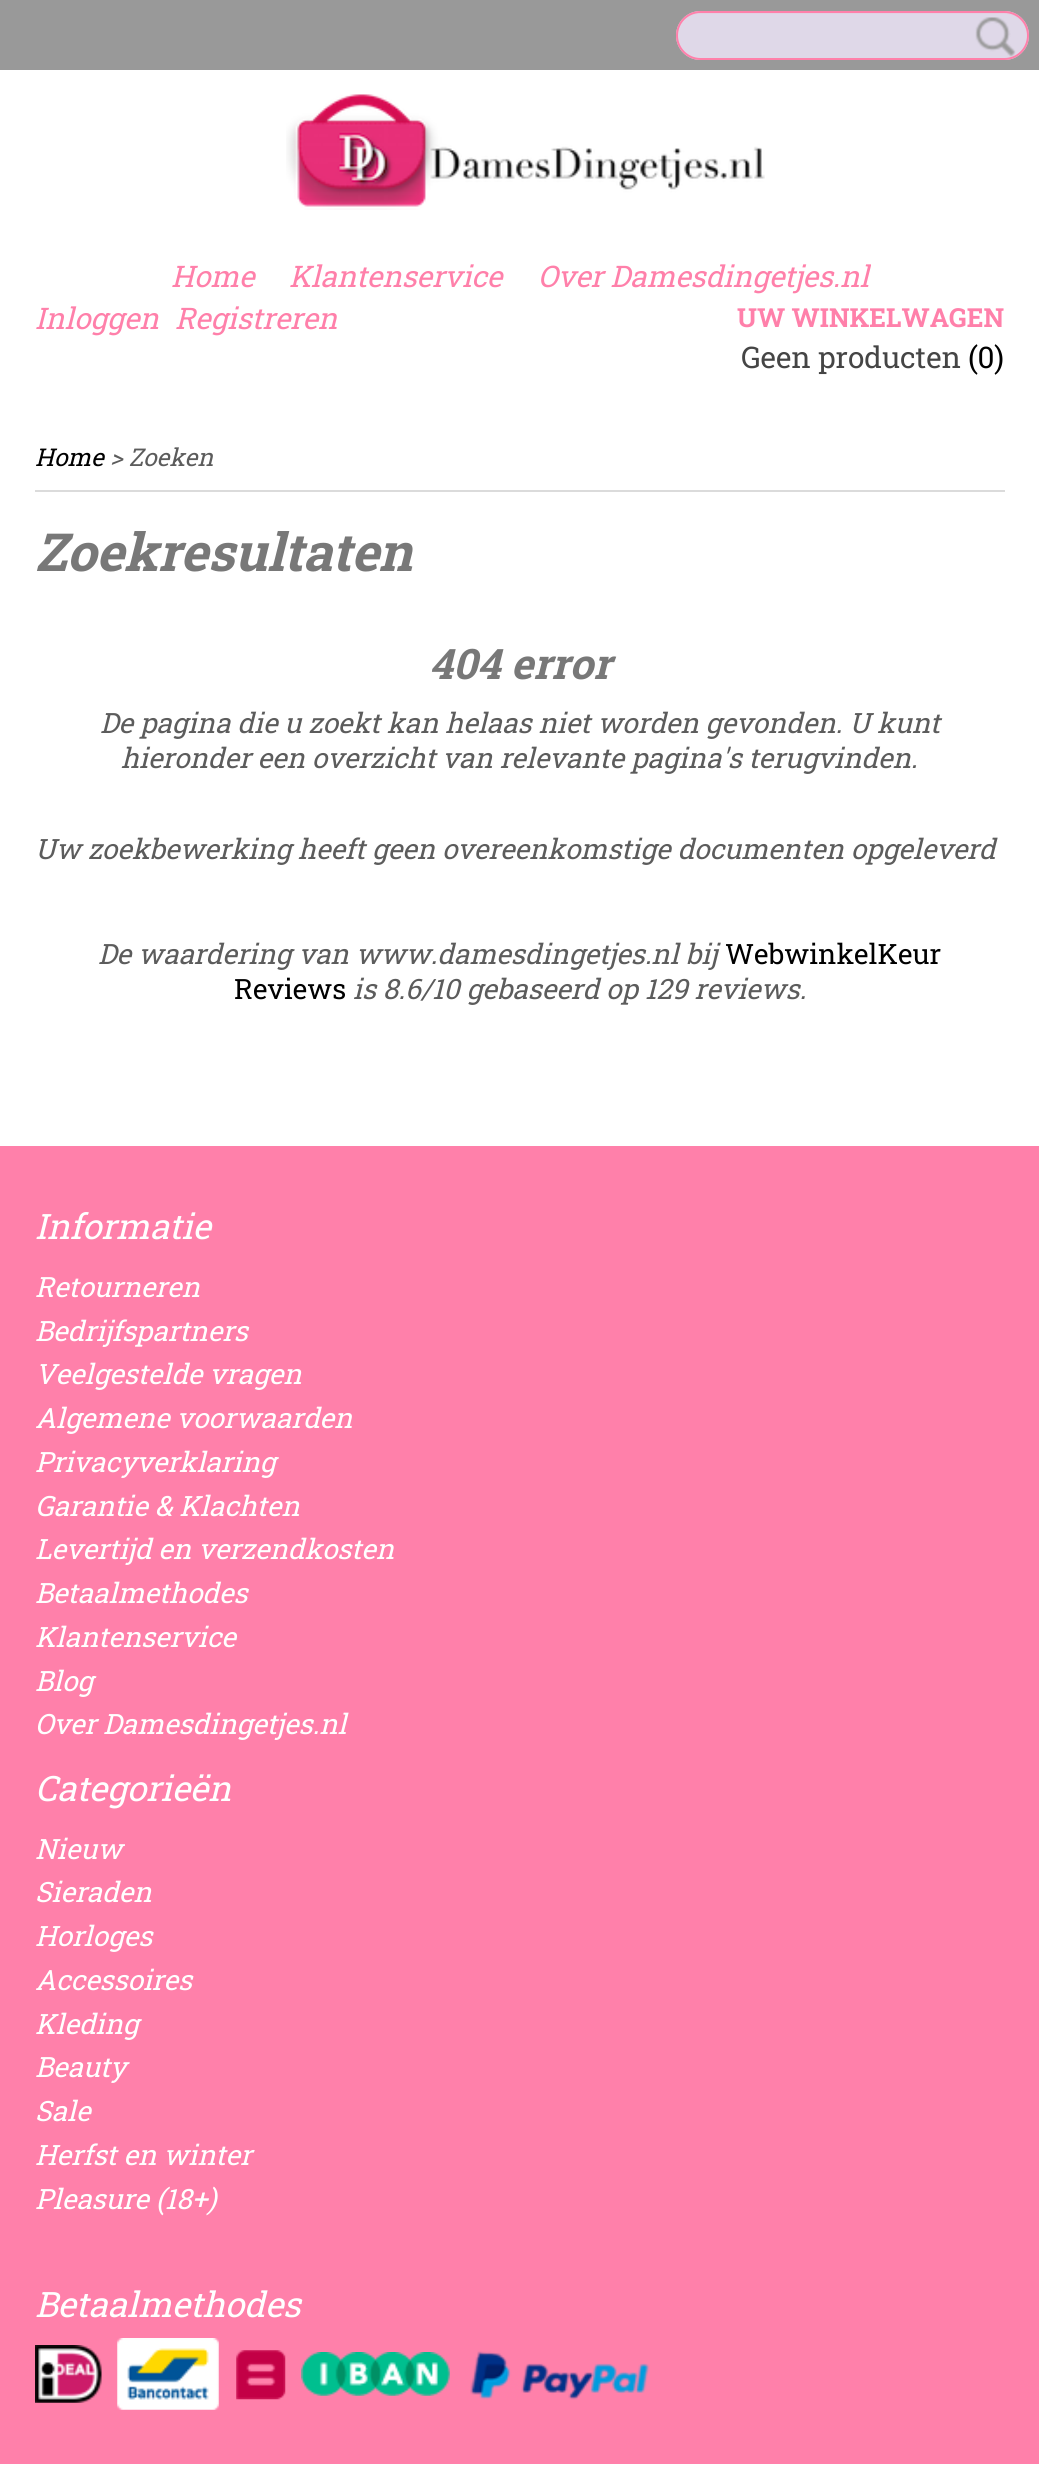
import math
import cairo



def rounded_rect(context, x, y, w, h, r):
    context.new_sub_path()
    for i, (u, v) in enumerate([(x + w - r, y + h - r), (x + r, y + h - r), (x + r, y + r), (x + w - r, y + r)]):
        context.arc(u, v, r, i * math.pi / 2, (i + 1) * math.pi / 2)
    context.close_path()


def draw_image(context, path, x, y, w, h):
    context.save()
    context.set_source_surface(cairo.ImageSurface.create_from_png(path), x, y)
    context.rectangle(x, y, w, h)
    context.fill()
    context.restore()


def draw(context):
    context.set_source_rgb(1, 1, 1)
    context.paint()
    context.set_source_rgb(153 / 255, 153 / 255, 153 / 255)
    context.rectangle(0, 0, 1039, 70)
    context.fill()
    context.set_source_rgb(223 / 255, 216 / 255, 232 / 255)
    rounded_rect(context, 676, 11, 353, 49, 24.5)
    context.fill()
    context.set_source_rgb(225 / 255, 209 / 255, 227 / 255)
    context.new_path()
    context.move_to(700, 14)
    context.line_to(1004, 14)
    context.curve_to(1017, 14, 1026, 23, 1027, 36)
    context.curve_to(1028, 23, 1017, 12, 1004, 12)
    context.line_to(700, 12)
    context.curve_to(687, 12, 676, 23, 677, 36)
    context.curve_to(678, 23, 687, 14, 700, 14)
    context.close_path()
    context.fill()
    rounded_rect(context, 677, 12, 351, 47, 23.5)
    context.set_source_rgb(1, 128 / 255, 170 / 255)
    context.stroke()
    draw_image(context, "images/1.png", 975, 17, 41, 40)
    draw_image(context, "images/2.png", 286, 94, 479, 116)
    context.set_source_rgb(219 / 255, 219 / 255, 219 / 255)
    context.rectangle(35, 490, 970, 2)
    context.fill()
    context.set_source_rgb(1, 128 / 255, 170 / 255)
    context.rectangle(0, 1146, 1039, 1318)
    context.fill()
    draw_image(context, "images/3.png", 35, 2345, 67, 58)
    draw_image(context, "images/4.png", 117, 2338, 102, 72)
    draw_image(context, "images/5.png", 236, 2350, 50, 50)
    draw_image(context, "images/6.png", 301, 2352, 149, 44)
    draw_image(context, "images/7.png", 470, 2351, 180, 49)
    context.select_font_face("Roboto Slab", cairo.FontSlant.ITALIC)
    context.set_font_size(29.75)
    context.move_to(171, 287)
    context.show_text("Home")
    context.move_to(289, 287)
    context.show_text("Klantenservice")
    context.move_to(538, 287)
    context.show_text("Over Damesdingetjes.nl")
    context.move_to(35, 329)
    context.show_text("Inloggen")
    context.move_to(175, 329)
    context.show_text("Registreren")
    context.select_font_face("Roboto Slab", cairo.FontSlant.NORMAL, cairo.FontWeight.BOLD)
    context.set_font_size(26.25)
    context.move_to(737, 327)
    context.show_text("UW WINKELWAGEN")
    context.select_font_face("Roboto Slab")
    context.set_font_size(29.75)
    context.set_source_rgb(69 / 255, 69 / 255, 69 / 255)
    context.move_to(741, 368)
    context.show_text("Geen producten")
    context.set_source_rgb(0, 0, 0)
    context.move_to(968, 368)
    context.show_text("(0)")
    context.select_font_face("Roboto Slab", cairo.FontSlant.ITALIC)
    context.set_font_size(24.5)
    context.move_to(35, 466)
    context.show_text("Home")
    context.set_source_rgb(92 / 255, 92 / 255, 92 / 255)
    context.move_to(110, 466)
    context.show_text("> Zoeken")
    context.select_font_face("Roboto Slab", cairo.FontSlant.ITALIC, cairo.FontWeight.BOLD)
    context.set_font_size(52.5)
    context.set_source_rgb(120 / 255, 120 / 255, 120 / 255)
    context.move_to(35, 571)
    context.show_text("Zoekresultaten")
    context.set_font_size(42)
    context.move_to(429, 679)
    context.show_text("404 error")
    context.select_font_face("Roboto Slab", cairo.FontSlant.ITALIC)
    context.set_font_size(28)
    context.set_source_rgb(92 / 255, 92 / 255, 92 / 255)
    context.move_to(100, 733)
    context.show_text("De pagina die u zoekt kan helaas niet worden gevonden. U kunt")
    context.move_to(121, 768)
    context.show_text("hieronder een overzicht van relevante pagina's terugvinden.")
    context.move_to(35, 859)
    context.show_text("Uw zoekbewerking heeft geen overeenkomstige documenten opgeleverd")
    context.move_to(98, 964)
    context.show_text("De waardering van www.damesdingetjes.nl bij")
    context.select_font_face("Roboto Slab")
    context.set_source_rgb(0, 0, 0)
    context.move_to(725, 964)
    context.show_text("WebwinkelKeur")
    context.move_to(234, 999)
    context.show_text("Reviews")
    context.select_font_face("Roboto Slab", cairo.FontSlant.ITALIC)
    context.set_source_rgb(92 / 255, 92 / 255, 92 / 255)
    context.move_to(353, 999)
    context.show_text("is 8.6/10 gebaseerd op 129 reviews.")
    context.set_font_size(35)
    context.set_source_rgb(1, 1, 1)
    context.move_to(35, 1239)
    context.show_text("Informatie")
    context.set_font_size(28)
    context.move_to(35, 1297)
    context.show_text("Retourneren")
    context.move_to(35, 1341)
    context.show_text("Bedrijfspartners")
    context.move_to(35, 1384)
    context.show_text("Veelgestelde vragen")
    context.move_to(35, 1428)
    context.show_text("Algemene voorwaarden")
    context.move_to(35, 1472)
    context.show_text("Privacyverklaring")
    context.move_to(35, 1516)
    context.show_text("Garantie & Klachten")
    context.move_to(35, 1559)
    context.show_text("Levertijd en verzendkosten")
    context.move_to(35, 1603)
    context.show_text("Betaalmethodes")
    context.move_to(35, 1647)
    context.show_text("Klantenservice")
    context.move_to(35, 1691)
    context.show_text("Blog")
    context.move_to(35, 1734)
    context.show_text("Over Damesdingetjes.nl")
    context.set_font_size(35)
    context.move_to(35, 1801)
    context.show_text("Categorieën")
    context.set_font_size(28)
    context.move_to(35, 1859)
    context.show_text("Nieuw")
    context.move_to(35, 1902)
    context.show_text("Sieraden")
    context.move_to(35, 1946)
    context.show_text("Horloges")
    context.move_to(35, 1990)
    context.show_text("Accessoires")
    context.move_to(35, 2034)
    context.show_text("Kleding")
    context.move_to(35, 2077)
    context.show_text("Beauty")
    context.move_to(35, 2121)
    context.show_text("Sale")
    context.move_to(35, 2165)
    context.show_text("Herfst en winter")
    context.move_to(35, 2209)
    context.show_text("Pleasure (18+)")
    context.set_font_size(35)
    context.move_to(35, 2317)
    context.show_text("Betaalmethodes")


surface = cairo.ImageSurface(cairo.Format.RGB24, 1039, 2470)
context = cairo.Context(surface)
options = cairo.FontOptions()
options.set_hint_metrics(cairo.HintMetrics.OFF)
options.set_hint_style(cairo.HintStyle.NONE)
context.set_font_options(options)
context.set_miter_limit(4)
draw(context)
surface.write_to_png("out.png")
